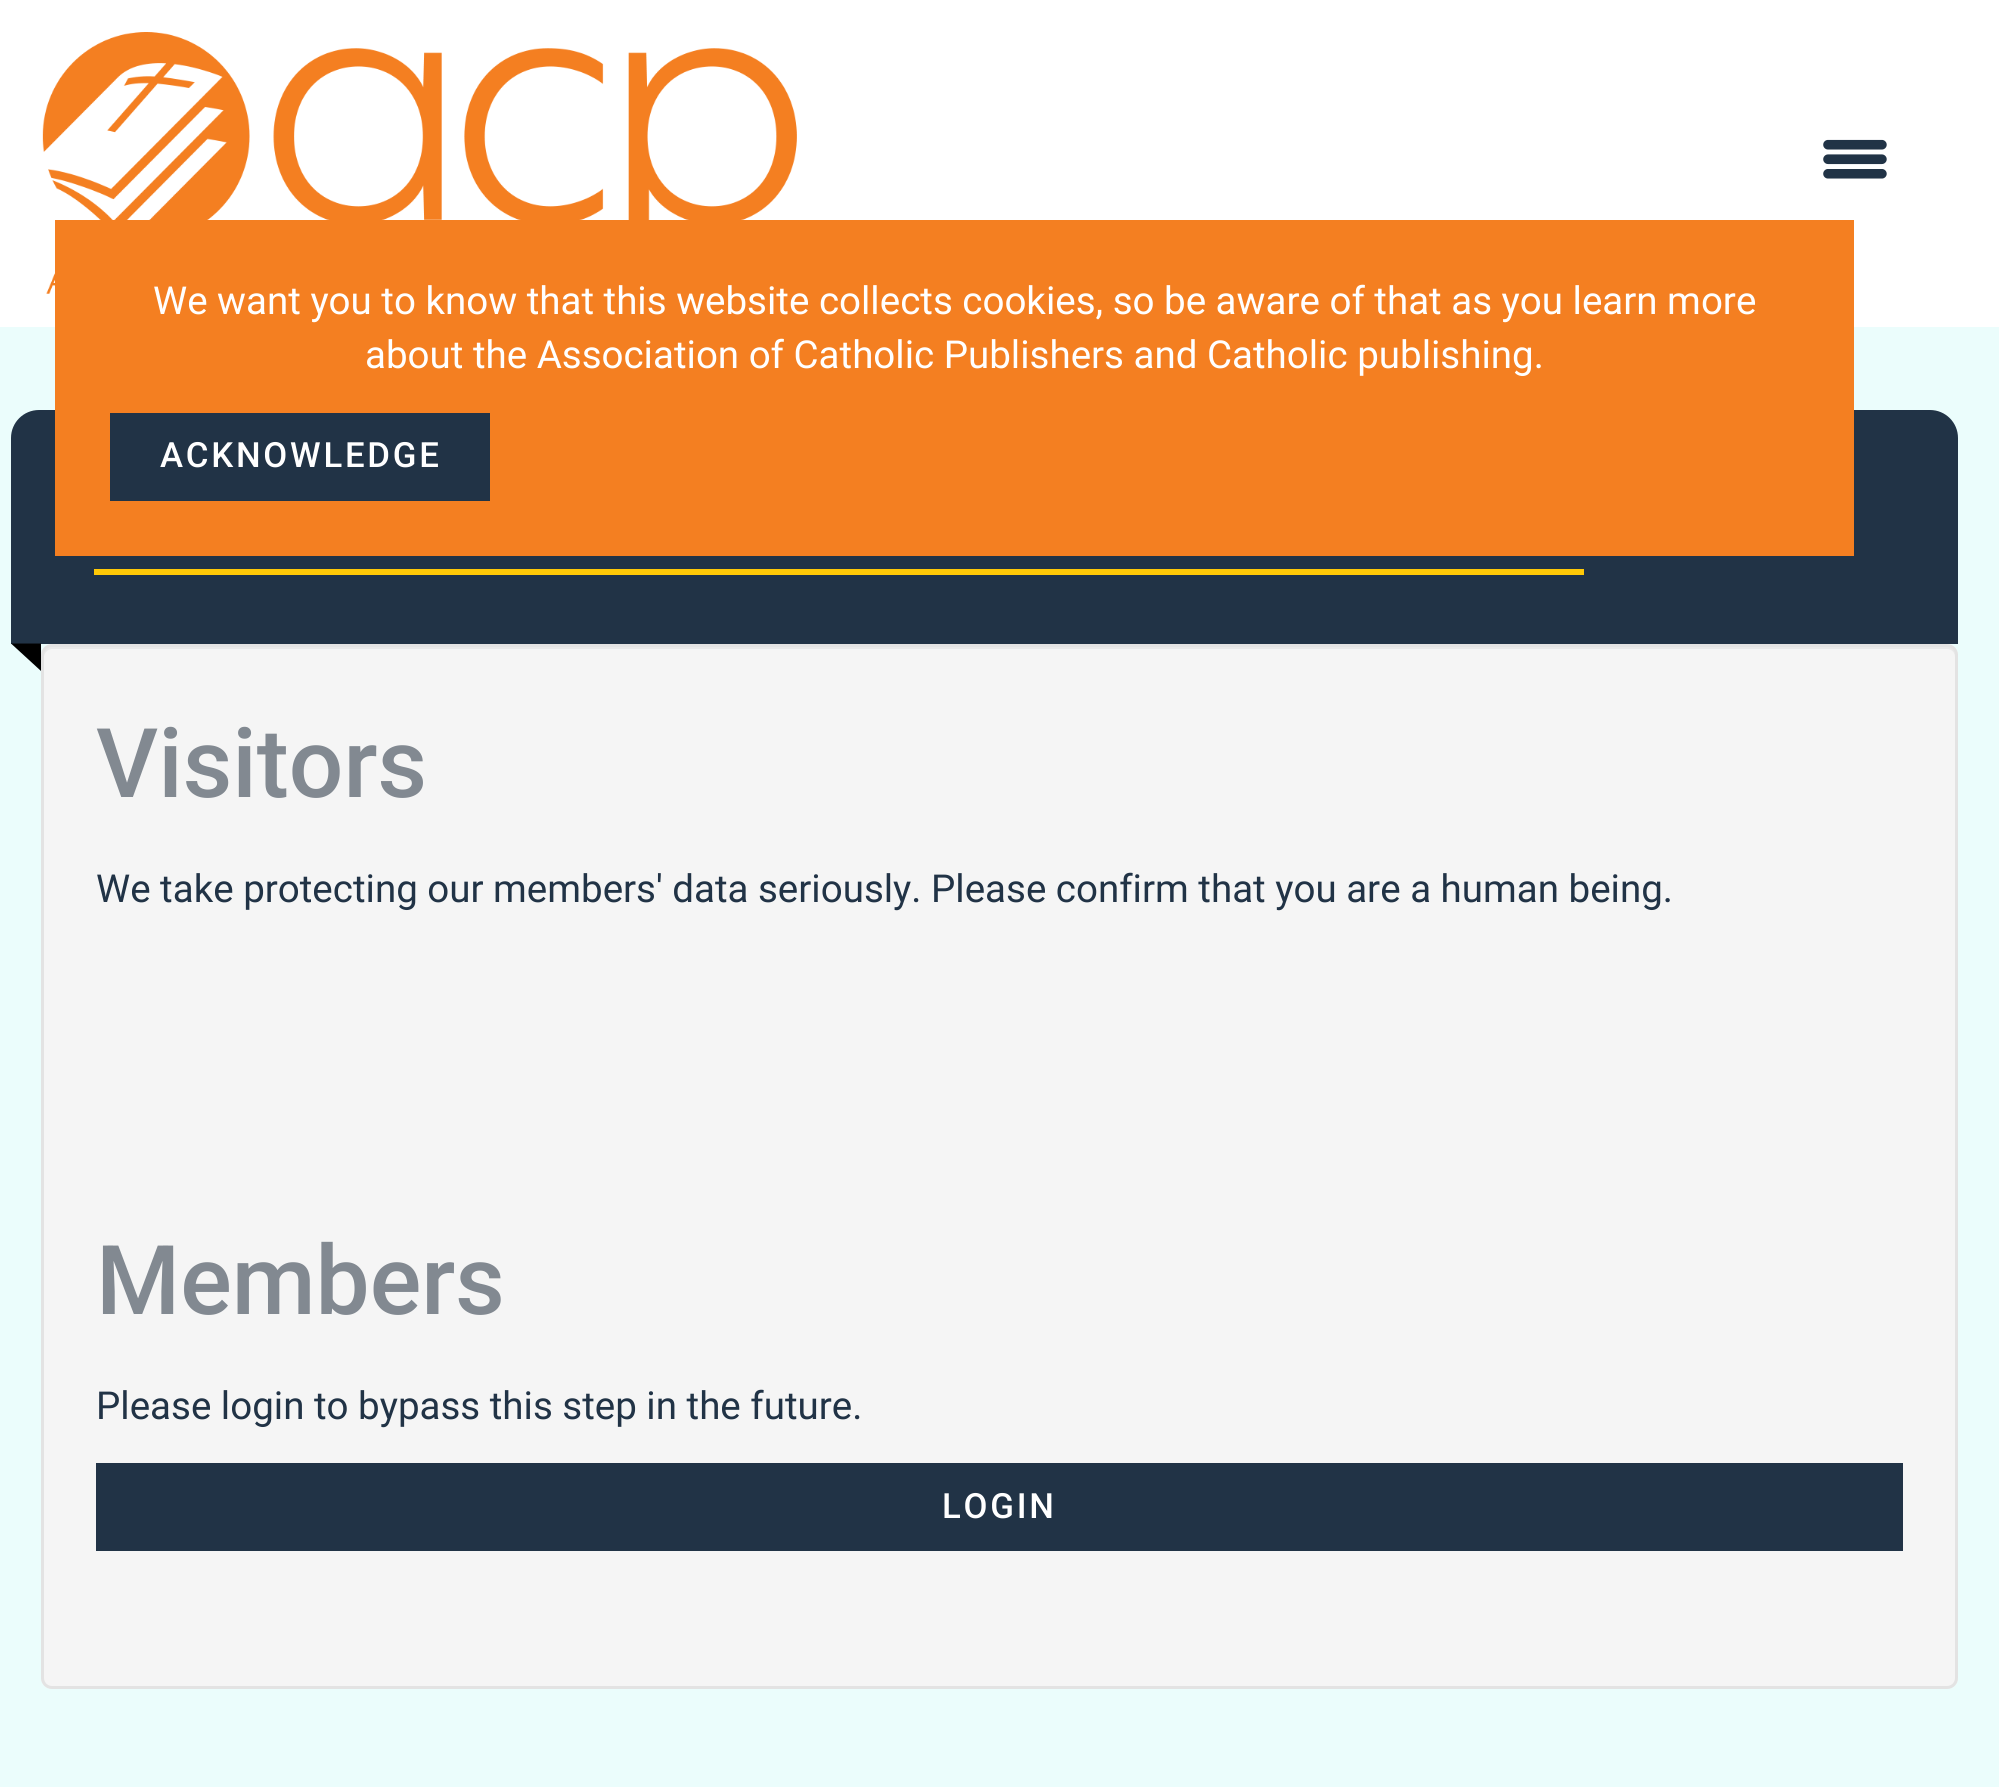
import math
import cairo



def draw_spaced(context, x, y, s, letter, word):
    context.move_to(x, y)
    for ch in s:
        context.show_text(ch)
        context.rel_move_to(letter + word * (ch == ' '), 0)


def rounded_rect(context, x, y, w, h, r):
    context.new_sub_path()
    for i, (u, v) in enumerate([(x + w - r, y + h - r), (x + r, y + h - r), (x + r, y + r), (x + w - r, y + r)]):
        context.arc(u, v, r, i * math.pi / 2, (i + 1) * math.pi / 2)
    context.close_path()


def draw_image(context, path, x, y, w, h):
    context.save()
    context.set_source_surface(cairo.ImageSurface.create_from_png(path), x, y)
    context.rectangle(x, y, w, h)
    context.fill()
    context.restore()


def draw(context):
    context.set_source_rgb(1, 1, 1)
    context.paint()
    draw_image(context, "images/1.png", 42, 32, 755, 262)
    draw_image(context, "images/2.png", 1823, 139, 64, 40)
    context.set_source_rgb(235 / 255, 253 / 255, 252 / 255)
    context.rectangle(0, 327, 1999, 1460)
    context.fill()
    context.set_source_rgb(33 / 255, 51 / 255, 70 / 255)
    context.new_path()
    context.move_to(39, 410)
    context.line_to(1930, 410)
    context.curve_to(1945.5, 410, 1958, 422.5, 1958, 438)
    context.line_to(1958, 644)
    context.line_to(11, 644)
    context.line_to(11, 438)
    context.curve_to(11, 422.5, 23.5, 410, 39, 410)
    context.close_path()
    context.fill()
    context.set_source_rgb(244 / 255, 127 / 255, 33 / 255)
    context.rectangle(55, 220, 1799, 336)
    context.fill()
    context.set_source_rgb(33 / 255, 51 / 255, 70 / 255)
    context.rectangle(110, 413, 380, 88)
    context.fill()
    context.set_source_rgb(1, 201 / 255, 7 / 255)
    context.rectangle(94, 569, 1490, 6)
    context.fill()
    context.set_source_rgb(0, 0, 0)
    context.new_path()
    context.move_to(11, 643.5)
    context.line_to(41, 643.5)
    context.line_to(41, 671)
    context.close_path()
    context.fill()
    context.set_source_rgb(245 / 255, 245 / 255, 245 / 255)
    rounded_rect(context, 41, 644, 1917, 1045, 11)
    context.fill()
    context.set_source_rgb(233 / 255, 233 / 255, 233 / 255)
    context.new_path()
    context.move_to(52, 649)
    context.line_to(1947, 649)
    context.curve_to(1952, 649, 1955, 653, 1955, 657)
    context.line_to(1955, 654)
    context.curve_to(1955, 650, 1951, 646, 1947, 646)
    context.line_to(52, 646)
    context.curve_to(48, 646, 44, 650, 44, 654)
    context.line_to(44, 657)
    context.curve_to(44, 653, 48, 649, 52, 649)
    context.close_path()
    context.fill()
    rounded_rect(context, 42.5, 645.5, 1914, 1042, 9.5)
    context.set_source_rgb(227 / 255, 227 / 255, 227 / 255)
    context.set_line_width(3)
    context.stroke()
    context.set_source_rgb(33 / 255, 51 / 255, 70 / 255)
    context.rectangle(96, 1463, 1807, 88)
    context.fill()
    context.select_font_face("Roboto")
    context.set_font_size(38.5)
    context.set_source_rgb(1, 1, 1)
    context.move_to(153, 314)
    context.show_text("We want you to know that this website collects cookies, so be aware of that as you learn more")
    context.move_to(365, 368)
    context.show_text("about the Association of Catholic Publishers and Catholic publishing.")
    context.select_font_face("Roboto Medium")
    context.set_font_size(34.75)
    draw_spaced(context, 160, 467, "ACKNOWLEDGE", 2.75, 0)
    context.set_font_size(96.25)
    context.set_source_rgb(130 / 255, 137 / 255, 145 / 255)
    context.move_to(96, 797)
    context.show_text("Visitors")
    context.select_font_face("Roboto")
    context.set_font_size(38.5)
    context.set_source_rgb(33 / 255, 51 / 255, 70 / 255)
    context.move_to(96, 902)
    context.show_text("We take protecting our members' data seriously. Please confirm that you are a human being.")
    context.select_font_face("Roboto Medium")
    context.set_font_size(96.25)
    context.set_source_rgb(130 / 255, 137 / 255, 145 / 255)
    context.move_to(96, 1314)
    context.show_text("Members")
    context.select_font_face("Roboto")
    context.set_font_size(38.5)
    context.set_source_rgb(33 / 255, 51 / 255, 70 / 255)
    context.move_to(96, 1419)
    context.show_text("Please login to bypass this step in the future.")
    context.select_font_face("Roboto Medium")
    context.set_font_size(34.75)
    context.set_source_rgb(1, 1, 1)
    draw_spaced(context, 942, 1518, "LOGIN", 2.75, 0)


surface = cairo.ImageSurface(cairo.Format.RGB24, 1999, 1787)
context = cairo.Context(surface)
options = cairo.FontOptions()
options.set_hint_metrics(cairo.HintMetrics.OFF)
options.set_hint_style(cairo.HintStyle.NONE)
context.set_font_options(options)
context.set_miter_limit(4)
draw(context)
surface.write_to_png("out.png")
